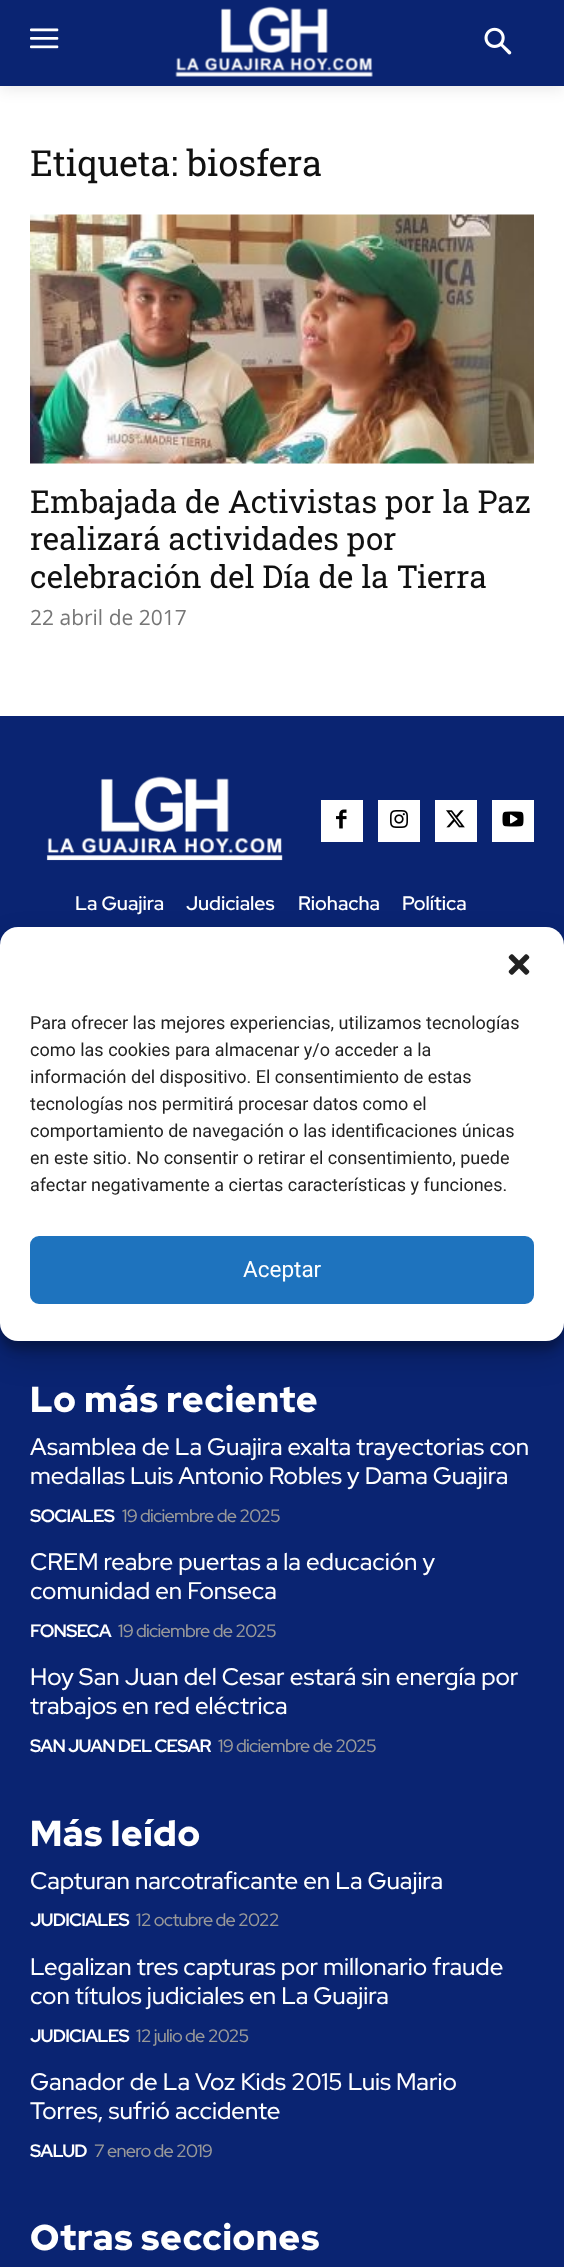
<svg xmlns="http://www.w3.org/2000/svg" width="564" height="2267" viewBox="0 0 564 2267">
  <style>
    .t1 { font: 36px Roboto Slab; fill: #111; }
    .t2 { font: 31.5px Roboto Slab; fill: #111; }
    .t3 { font: 21px Open Sans; fill: #767676; }
    .t4 { font: 600 19.5px Red Hat Display; fill: #fff; }
    .t5 { font: 900 36px Red Hat Display; letter-spacing: 0.75px; fill: #fff; }
    .t6 { font: 500 24px Red Hat Display; fill: #fff; }
    .t7 { font: bold 18px Red Hat Display; letter-spacing: -0.75px; fill: #fff; }
    .t8 { font: 500 18px Red Hat Display; letter-spacing: -0.75px; fill: #999; }
    .t9 { font: 18px Roboto; fill: #222; }
    .t10 { font: 22.5px Roboto; fill: #fff; }
  </style>
  <rect width="100%" height="100%" fill="#fff"/>
  <rect x="0" y="3" width="564" height="86" fill="#00000017" filter="blur(7.5px)"/>
  <rect x="0" y="0" width="564" height="86" fill="#0a2472"/>
  <image x="30" y="28" width="29" height="21" href="images/1.png"/>
  <image x="175" y="6" width="198" height="71" href="images/2.png"/>
  <image x="484" y="27" width="28" height="28" href="images/3.png"/>
  <text x="30" y="176" class="t1">Etiqueta: biosfera</text>
  <image x="30" y="214" width="504" height="250" href="images/4.png"/>
  <text x="30" y="513" class="t2">Embajada de Activistas por la Paz</text>
  <text x="30" y="550" class="t2">realizará actividades por</text>
  <text x="30" y="588" class="t2">celebración del Día de la Tierra</text>
  <text x="30" y="625" class="t3">22 abril de 2017</text>
  <rect x="0" y="716" width="564" height="1551" fill="#0a2472"/>
  <image x="46" y="776" width="237" height="85" href="images/5.png"/>
  <rect x="321" y="800" width="42" height="42" fill="#fff"/>
  <image x="336" y="809" width="11" height="20" href="images/6.png"/>
  <rect x="378" y="800" width="42" height="42" fill="#fff"/>
  <image x="390" y="810" width="18" height="18" href="images/7.png"/>
  <rect x="435" y="800" width="42" height="42" fill="#fff"/>
  <image x="446" y="810" width="19" height="18" href="images/8.png"/>
  <rect x="492" y="800" width="42" height="42" fill="#fff"/>
  <image x="502" y="811" width="22" height="16" href="images/9.png"/>
  <text x="75" y="910" class="t4">La Guajira</text>
  <text x="186" y="910" class="t4">Judiciales</text>
  <text x="298" y="910" class="t4">Riohacha</text>
  <text x="402" y="910" class="t4">Política</text>
  <text x="30" y="1412" class="t5">Lo más reciente</text>
  <text x="30" y="1455" class="t6">Asamblea de La Guajira exalta trayectorias con</text>
  <text x="30" y="1484" class="t6">medallas Luis Antonio Robles y Dama Guajira</text>
  <text x="30" y="1522" class="t7">SOCIALES</text>
  <text x="122" y="1522" class="t8">19 diciembre de 2025</text>
  <text x="30" y="1570" class="t6">CREM reabre puertas a la educación y</text>
  <text x="30" y="1599" class="t6">comunidad en Fonseca</text>
  <text x="30" y="1637" class="t7">FONSECA</text>
  <text x="118" y="1637" class="t8">19 diciembre de 2025</text>
  <text x="30" y="1685" class="t6">Hoy San Juan del Cesar estará sin energía por</text>
  <text x="30" y="1714" class="t6">trabajos en red eléctrica</text>
  <text x="30" y="1752" class="t7">SAN JUAN DEL CESAR</text>
  <text x="218" y="1752" class="t8">19 diciembre de 2025</text>
  <text x="30" y="1846" class="t5">Más leído</text>
  <text x="30" y="1889" class="t6">Capturan narcotraficante en La Guajira</text>
  <text x="30" y="1926" class="t7">JUDICIALES</text>
  <text x="136" y="1926" class="t8">12 octubre de 2022</text>
  <text x="30" y="1975" class="t6">Legalizan tres capturas por millonario fraude</text>
  <text x="30" y="2004" class="t6">con títulos judiciales en La Guajira</text>
  <text x="30" y="2042" class="t7">JUDICIALES</text>
  <text x="136" y="2042" class="t8">12 julio de 2025</text>
  <text x="30" y="2090" class="t6">Ganador de La Voz Kids 2015 Luis Mario</text>
  <text x="30" y="2119" class="t6">Torres, sufrió accidente</text>
  <text x="30" y="2157" class="t7">SALUD</text>
  <text x="94" y="2157" class="t8">7 enero de 2019</text>
  <text x="30" y="2250" class="t5">Otras secciones</text>
  <rect x="0" y="936" width="564" height="414" rx="18" fill="#0000003b" filter="blur(4.5px)"/>
  <rect x="0" y="942" width="564" height="414" rx="18" fill="#00000030" filter="blur(15px)"/>
  <rect x="0" y="927" width="564" height="414" rx="18" fill="#fff"/>
  <image x="508" y="954" width="22" height="21" href="images/10.png"/>
  <text x="30" y="1029" class="t9">Para ofrecer las mejores experiencias, utilizamos tecnologías</text>
  <text x="30" y="1056" class="t9">como las cookies para almacenar y/o acceder a la</text>
  <text x="30" y="1083" class="t9">información del dispositivo. El consentimiento de estas</text>
  <text x="30" y="1110" class="t9">tecnologías nos permitirá procesar datos como el</text>
  <text x="30" y="1137" class="t9">comportamiento de navegación o las identificaciones únicas</text>
  <text x="30" y="1164" class="t9">en este sitio. No consentir o retirar el consentimiento, puede</text>
  <text x="30" y="1191" class="t9">afectar negativamente a ciertas características y funciones.</text>
  <rect x="31" y="1237" width="502" height="66" rx="8" fill="#1e73be" stroke="#1e73be" stroke-width="2"/>
  <text x="243" y="1277" class="t10">Aceptar</text>
</svg>
